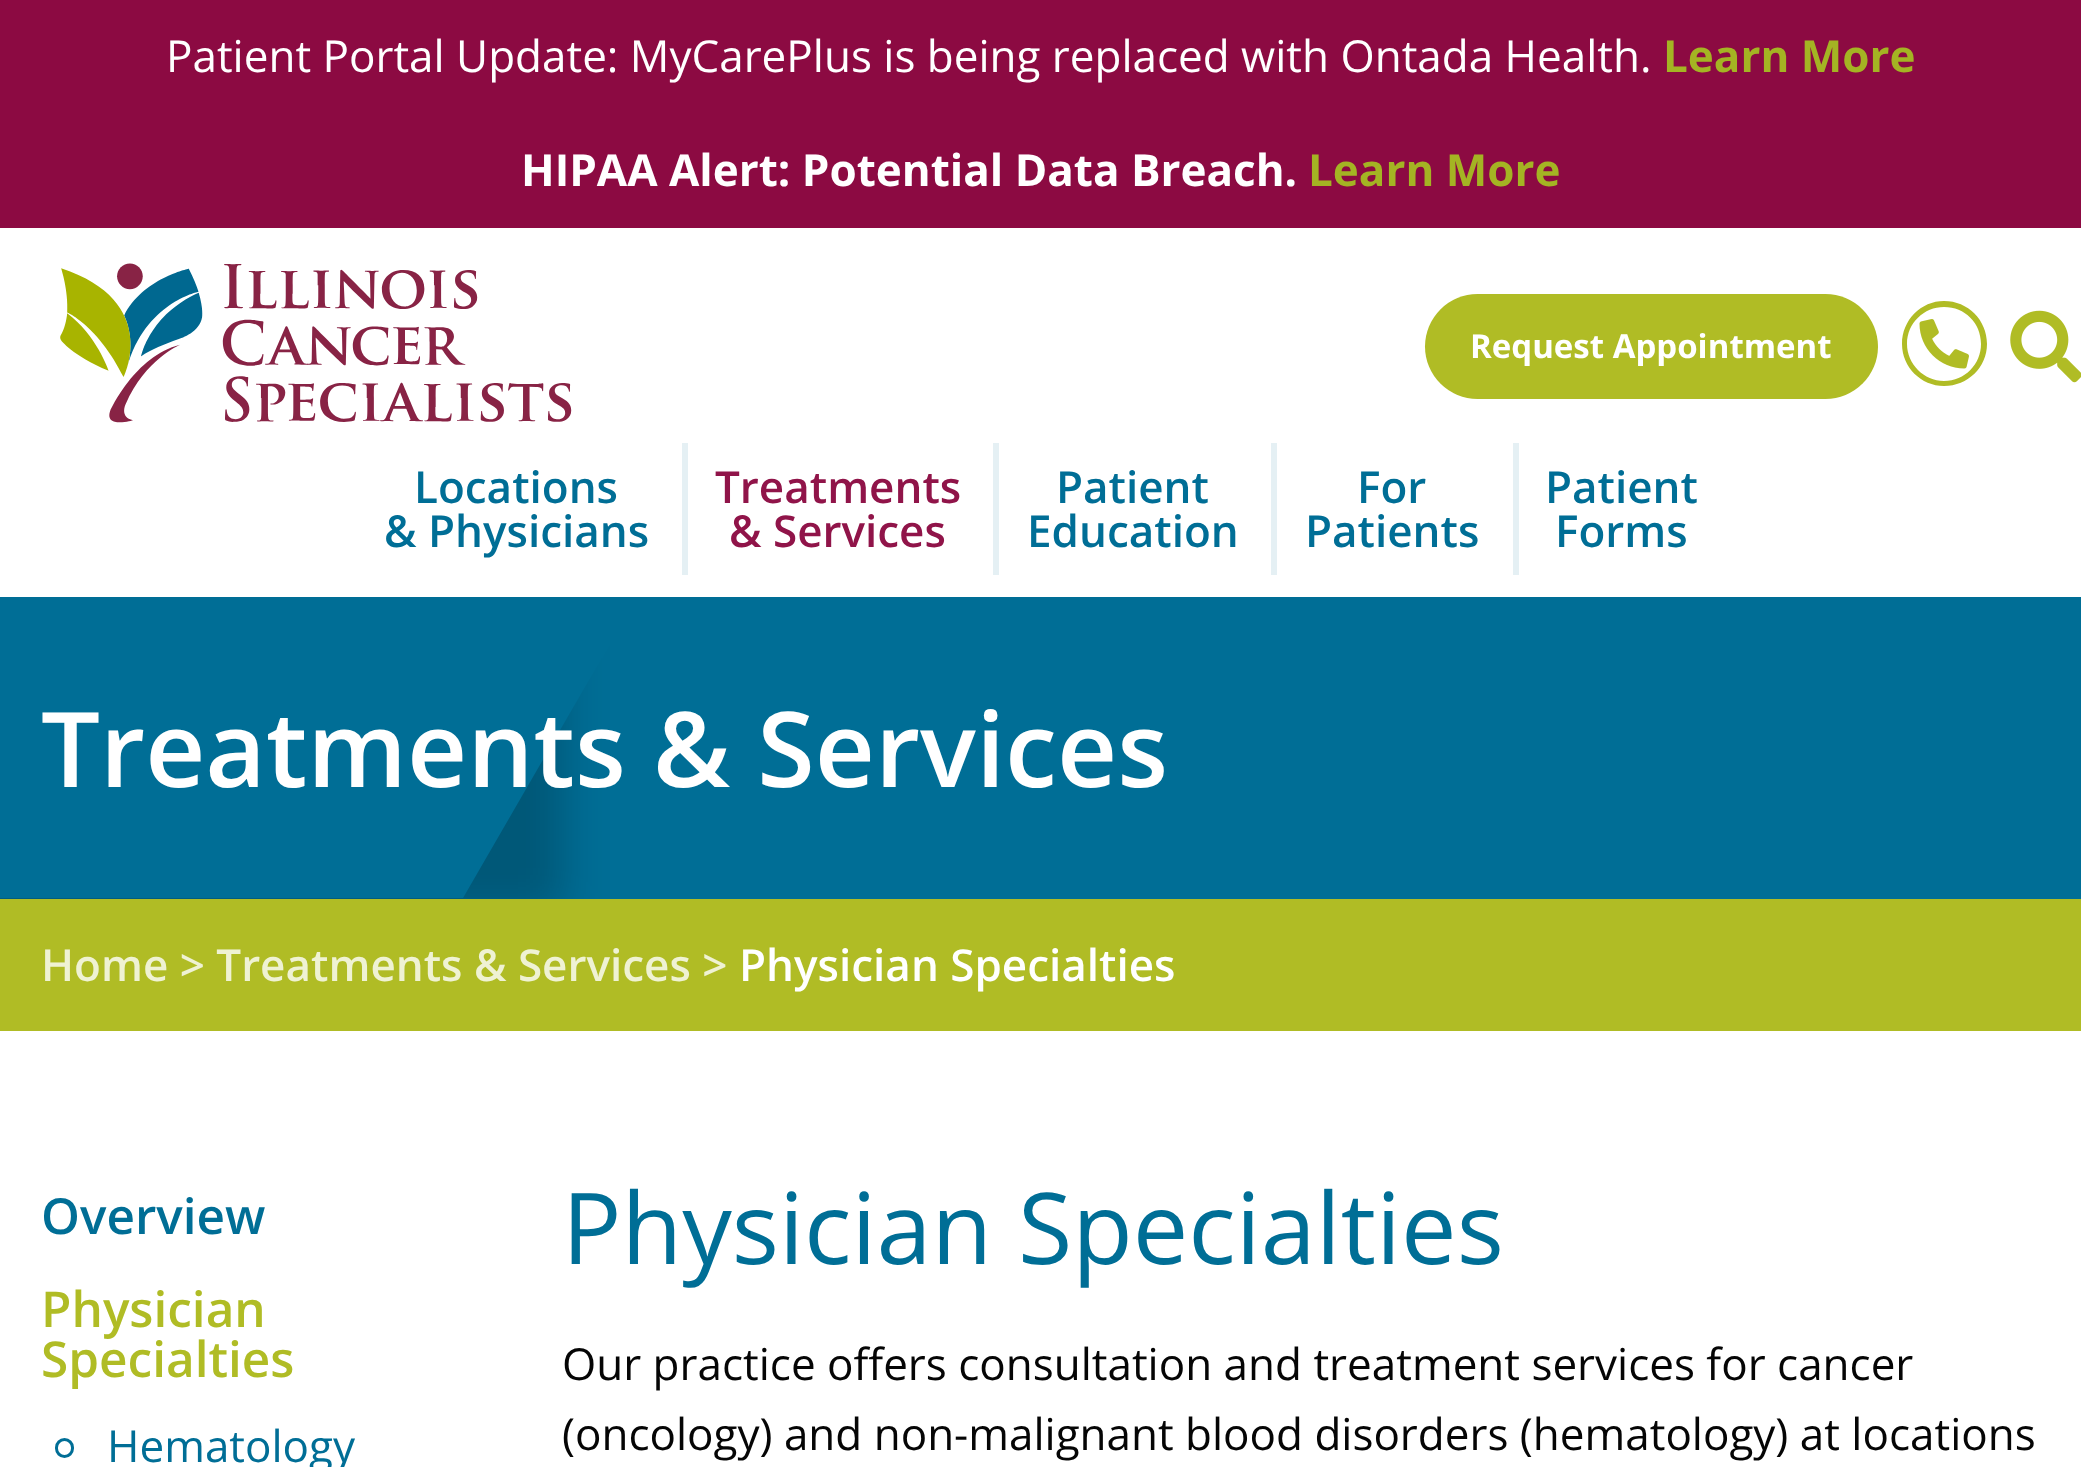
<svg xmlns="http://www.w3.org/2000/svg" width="2081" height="1467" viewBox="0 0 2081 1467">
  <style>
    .t1 { font: 44px Open Sans; fill: #fff; }
    .t2 { font: bold 44px Open Sans; fill: #a4b423; }
    .t3 { font: bold 44px Open Sans; fill: #fff; }
    .t4 { font: bold 33px Open Sans; fill: #fff; }
    .t5 { font: 600 44px Open Sans; fill: #006e96; }
    .t6 { font: 600 44px Open Sans; fill: #901449; }
    .t7 { font: 600 104.5px Open Sans; fill: #fff; }
    .t8 { font: 600 44px Open Sans; fill: #eff2d3; }
    .t9 { font: 600 44px Open Sans; fill: #fff; }
    .t10 { font: 600 49.5px Open Sans; fill: #006e96; }
    .t11 { font: 600 49.5px Open Sans; fill: #b0bc25; }
    .t12 { font: 44px Open Sans; fill: #006e96; }
    .t13 { font: 99px Open Sans; fill: #006e96; }
    .t14 { font: 44px Open Sans; fill: #050505; }
  </style>
  <defs>
    <clipPath id="clip1"><rect x="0" y="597" width="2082" height="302"/></clipPath>
    <clipPath id="clip2"><path d="M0 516H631V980H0ZM-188 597H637L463 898H-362Z" clip-rule="evenodd"/></clipPath>
  </defs>
  <rect width="100%" height="100%" fill="#fff"/>
  <rect x="0" y="0" width="2081" height="228" fill="#8c0a42"/>
  <text x="166" y="72" class="t1">Patient Portal Update: MyCarePlus is being replaced with Ontada Health.</text>
  <text x="1663" y="72" class="t2">Learn More</text>
  <text x="521" y="186" class="t3">HIPAA Alert: Potential Data Breach.</text>
  <text x="1308" y="186" class="t2">Learn More</text>
  <image x="60" y="263" width="512" height="160" href="images/1.png"/>
  <rect x="1425" y="294" width="453" height="105" rx="52.5" fill="#b0bc25"/>
  <text x="1470" y="358" class="t4">Request Appointment</text>
  <image x="1919" y="319" width="50" height="50" href="images/2.png"/>
  <path d="M1944 301C1921 301 1902 320 1902 344C1902 367 1921 386 1944 386C1968 386 1987 367 1987 344C1987 320 1968 301 1944 301ZM1981 344C1981 364 1965 381 1944 381C1924 381 1907 364 1907 344C1907 323 1924 307 1944 307C1965 307 1981 323 1981 344Z" fill="#b0bc25"/>
  <image x="2010" y="310" width="71" height="73" href="images/3.png"/>
  <text x="414" y="503" class="t5">Locations</text>
  <rect x="0" y="597" width="2081" height="302" fill="#006e96"/>
  <rect x="0" y="899" width="2081" height="132" fill="#b0bc25"/>
  <g clip-path="url(#clip1)">
    <g clip-path="url(#clip2)">
      <rect x="-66" y="583" width="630" height="330" fill="#00000033" filter="blur(22px)"/>
    </g>
  </g>
  <text x="384" y="547" class="t5">&amp; Physicians</text>
  <rect x="682" y="443" width="6" height="132" fill="#e5f0f4"/>
  <text x="715" y="503" class="t6">Treatments</text>
  <text x="729" y="547" class="t6">&amp; Services</text>
  <rect x="993" y="443" width="6" height="132" fill="#e5f0f4"/>
  <text x="1056" y="503" class="t5">Patient</text>
  <text x="1027" y="547" class="t5">Education</text>
  <rect x="1271" y="443" width="6" height="132" fill="#e5f0f4"/>
  <text x="1357" y="503" class="t5">For</text>
  <text x="1305" y="547" class="t5">Patients</text>
  <rect x="1513" y="443" width="6" height="132" fill="#e5f0f4"/>
  <text x="1545" y="503" class="t5">Patient</text>
  <text x="1555" y="547" class="t5">Forms</text>
  <text x="41" y="787" class="t7">Treatments &amp; Services</text>
  <text x="41" y="981" class="t8">Home &gt; Treatments &amp; Services &gt;</text>
  <text x="739" y="981" class="t9">Physician Specialties</text>
  <text x="41" y="1234" class="t10">Overview</text>
  <text x="41" y="1327" class="t11">Physician</text>
  <text x="41" y="1377" class="t11">Specialties</text>
  <rect x="56.5" y="1439.5" width="16" height="17" rx="8" fill="none" stroke="#006e96" stroke-width="3"/>
  <text x="107" y="1462" class="t12">Hematology</text>
  <text x="562" y="1264" class="t13">Physician Specialties</text>
  <text x="562" y="1380" class="t14">Our practice offers consultation and treatment services for cancer</text>
  <text x="562" y="1450" class="t14">(oncology) and non-malignant blood disorders (hematology) at locations</text>
</svg>
